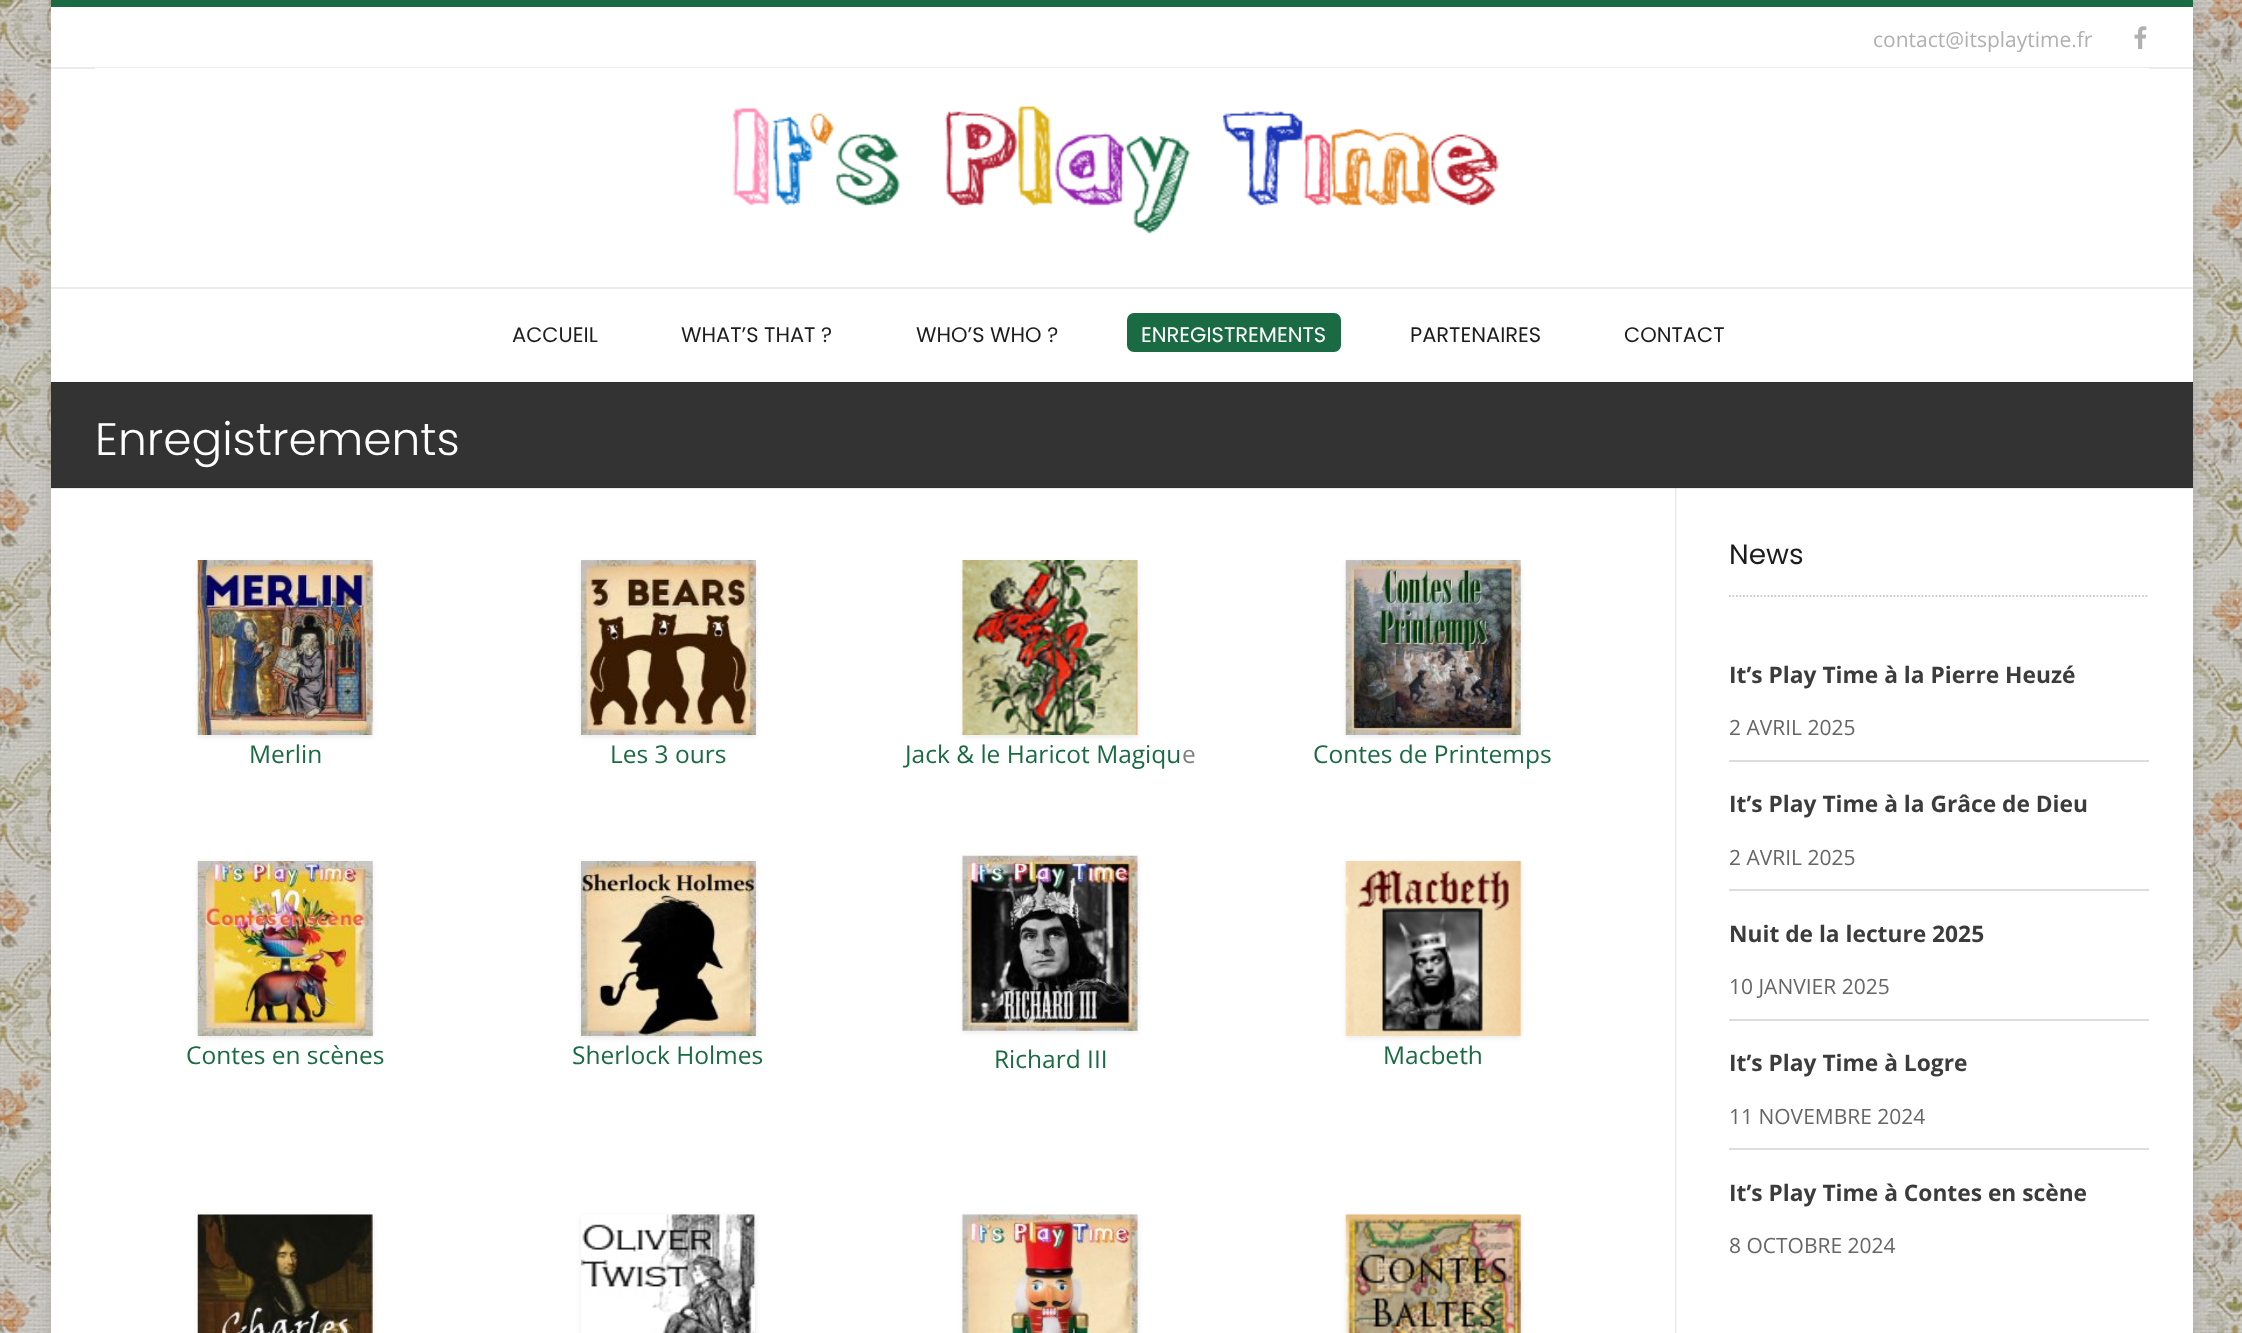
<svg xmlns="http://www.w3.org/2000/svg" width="2242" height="1333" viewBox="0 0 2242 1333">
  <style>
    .t1 { font: 21px Open Sans; fill: #b0b0b0; }
    .t2 { font: 21px Poppins; fill: #1d1d1d; }
    .t3 { font: 21px Poppins; fill: #fff; }
    .t4 { font: 300 45.5px Poppins; fill: #fff; }
    .t5 { font: 24.5px Open Sans; fill: #1a6a43; }
    .t6 { font: 24.5px Open Sans; fill: #808080; }
    .t7 { font: 28px Poppins; fill: #1d1d1d; }
    .t8 { font: bold 22.75px Open Sans; fill: #3c3c3c; }
    .t9 { font: 21px Open Sans; fill: #666; }
  </style>
  <defs>
    <clipPath id="clip1"><path d="M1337 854H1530V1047H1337ZM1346 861H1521V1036H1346Z" clip-rule="evenodd"/></clipPath>
  </defs>
  <rect width="100%" height="100%" fill="#fff"/>
  <image x="0" y="0" width="2242" height="1333" href="images/1.png"/>
  <rect x="51" y="0" width="2142" height="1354" fill="#0000001f" filter="blur(7px)"/>
  <rect x="51" y="7" width="2142" height="1326" fill="#fff"/>
  <path d="M51 382V383H2193V2V382Z" fill="#2d2d2d"/>
  <rect x="51" y="0" width="2142" height="7" fill="#1a6a43"/>
  <rect x="51" y="67" width="2142" height="2" fill="#ebebeb"/>
  <text x="1873" y="47" class="t1">contact@itsplaytime.fr</text>
  <image x="2134" y="26" width="13" height="23" href="images/2.png"/>
  <path d="M51 287V289H2193V70V287Z" fill="#ebebeb"/>
  <rect x="95" y="68" width="2054" height="1" fill="#fff"/>
  <image x="732" y="106" width="767" height="128" href="images/3.png"/>
  <text x="512" y="342" class="t2">ACCUEIL</text>
  <text x="681" y="342" class="t2">WHAT’S THAT ?</text>
  <text x="916" y="342" class="t2">WHO’S WHO ?</text>
  <rect x="1127" y="313" width="214" height="39" rx="7" fill="#1a6a43"/>
  <text x="1141" y="342" class="t3">ENREGISTREMENTS</text>
  <text x="1410" y="342" class="t2">PARTENAIRES</text>
  <text x="1624" y="342" class="t2">CONTACT</text>
  <rect x="51" y="383" width="2142" height="105" fill="#333"/>
  <rect x="51" y="487" width="2142" height="2" fill="#00000014"/>
  <text x="95" y="455" class="t4">Enregistrements</text>
  <rect x="1675" y="488" width="2" height="845" fill="#0000000a"/>
  <rect x="198" y="562" width="175" height="175" fill="#00000014" filter="blur(2.5px)"/>
  <image x="197" y="560" width="176" height="175" href="images/4.png"/>
  <text x="249" y="763" class="t5">Merlin</text>
  <rect x="581" y="562" width="175" height="175" fill="#00000014" filter="blur(2.5px)"/>
  <image x="581" y="560" width="175" height="175" href="images/5.png"/>
  <text x="610" y="763" class="t5">Les 3 ours</text>
  <rect x="963" y="562" width="175" height="175" fill="#00000014" filter="blur(2.5px)"/>
  <image x="962" y="560" width="176" height="175" href="images/6.png"/>
  <text x="905" y="763" class="t5">Jack &amp; le Haricot Magiqu</text>
  <text x="1182" y="763" class="t6">e</text>
  <rect x="1346" y="562" width="175" height="175" fill="#00000014" filter="blur(2.5px)"/>
  <image x="1345" y="560" width="176" height="175" href="images/7.png"/>
  <text x="1313" y="763" class="t5">Contes de Printemps</text>
  <rect x="198" y="863" width="175" height="175" fill="#00000014" filter="blur(2.5px)"/>
  <image x="197" y="861" width="176" height="175" href="images/8.png"/>
  <text x="186" y="1064" class="t5">Contes en scènes</text>
  <rect x="581" y="863" width="175" height="175" fill="#00000014" filter="blur(2.5px)"/>
  <image x="581" y="861" width="175" height="175" href="images/9.png"/>
  <text x="572" y="1064" class="t5">Sherlock Holmes</text>
  <rect x="963" y="858" width="175" height="175" fill="#00000014" filter="blur(2.5px)"/>
  <image x="962" y="855" width="176" height="176" href="images/10.png"/>
  <text x="994" y="1068" class="t5">Richard III</text>
  <g clip-path="url(#clip1)">
    <rect x="1346" y="863" width="175" height="175" fill="#00000014" filter="blur(2.5px)"/>
  </g>
  <image x="1345" y="861" width="176" height="175" href="images/11.png"/>
  <text x="1383" y="1064" class="t5">Macbeth</text>
  <rect x="198" y="1216" width="175" height="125" fill="#00000014" filter="blur(2.5px)"/>
  <image x="197" y="1214" width="176" height="119" href="images/12.png"/>
  <rect x="581" y="1216" width="175" height="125" fill="#00000014" filter="blur(2.5px)"/>
  <image x="581" y="1214" width="174" height="119" href="images/13.png"/>
  <rect x="963" y="1216" width="175" height="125" fill="#00000014" filter="blur(2.5px)"/>
  <image x="962" y="1214" width="176" height="119" href="images/14.png"/>
  <rect x="1346" y="1216" width="175" height="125" fill="#00000014" filter="blur(2.5px)"/>
  <image x="1345" y="1214" width="176" height="119" href="images/15.png"/>
  <path d="M1675 488V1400H1676V488H2147Z" fill="#0000000a"/>
  <path d="M1729 596H2149" fill="none" stroke="#ccc" stroke-width="1.8" stroke-dasharray="1.75 1.75"/>
  <text x="1729" y="564" class="t7">News</text>
  <rect x="1729" y="760" width="420" height="2" fill="#ddd"/>
  <text x="1729" y="683" class="t8">It’s Play Time à la Pierre Heuzé</text>
  <text x="1729" y="735" class="t9">2 AVRIL 2025</text>
  <rect x="1729" y="889" width="420" height="2" fill="#ddd"/>
  <text x="1729" y="812" class="t8">It’s Play Time à la Grâce de Dieu</text>
  <text x="1729" y="865" class="t9">2 AVRIL 2025</text>
  <rect x="1729" y="1019" width="420" height="2" fill="#ddd"/>
  <text x="1729" y="942" class="t8">Nuit de la lecture 2025</text>
  <text x="1729" y="994" class="t9">10 JANVIER 2025</text>
  <rect x="1729" y="1148" width="420" height="2" fill="#ddd"/>
  <text x="1729" y="1071" class="t8">It’s Play Time à Logre</text>
  <text x="1729" y="1124" class="t9">11 NOVEMBRE 2024</text>
  <text x="1729" y="1201" class="t8">It’s Play Time à Contes en scène</text>
  <text x="1729" y="1253" class="t9">8 OCTOBRE 2024</text>
</svg>
